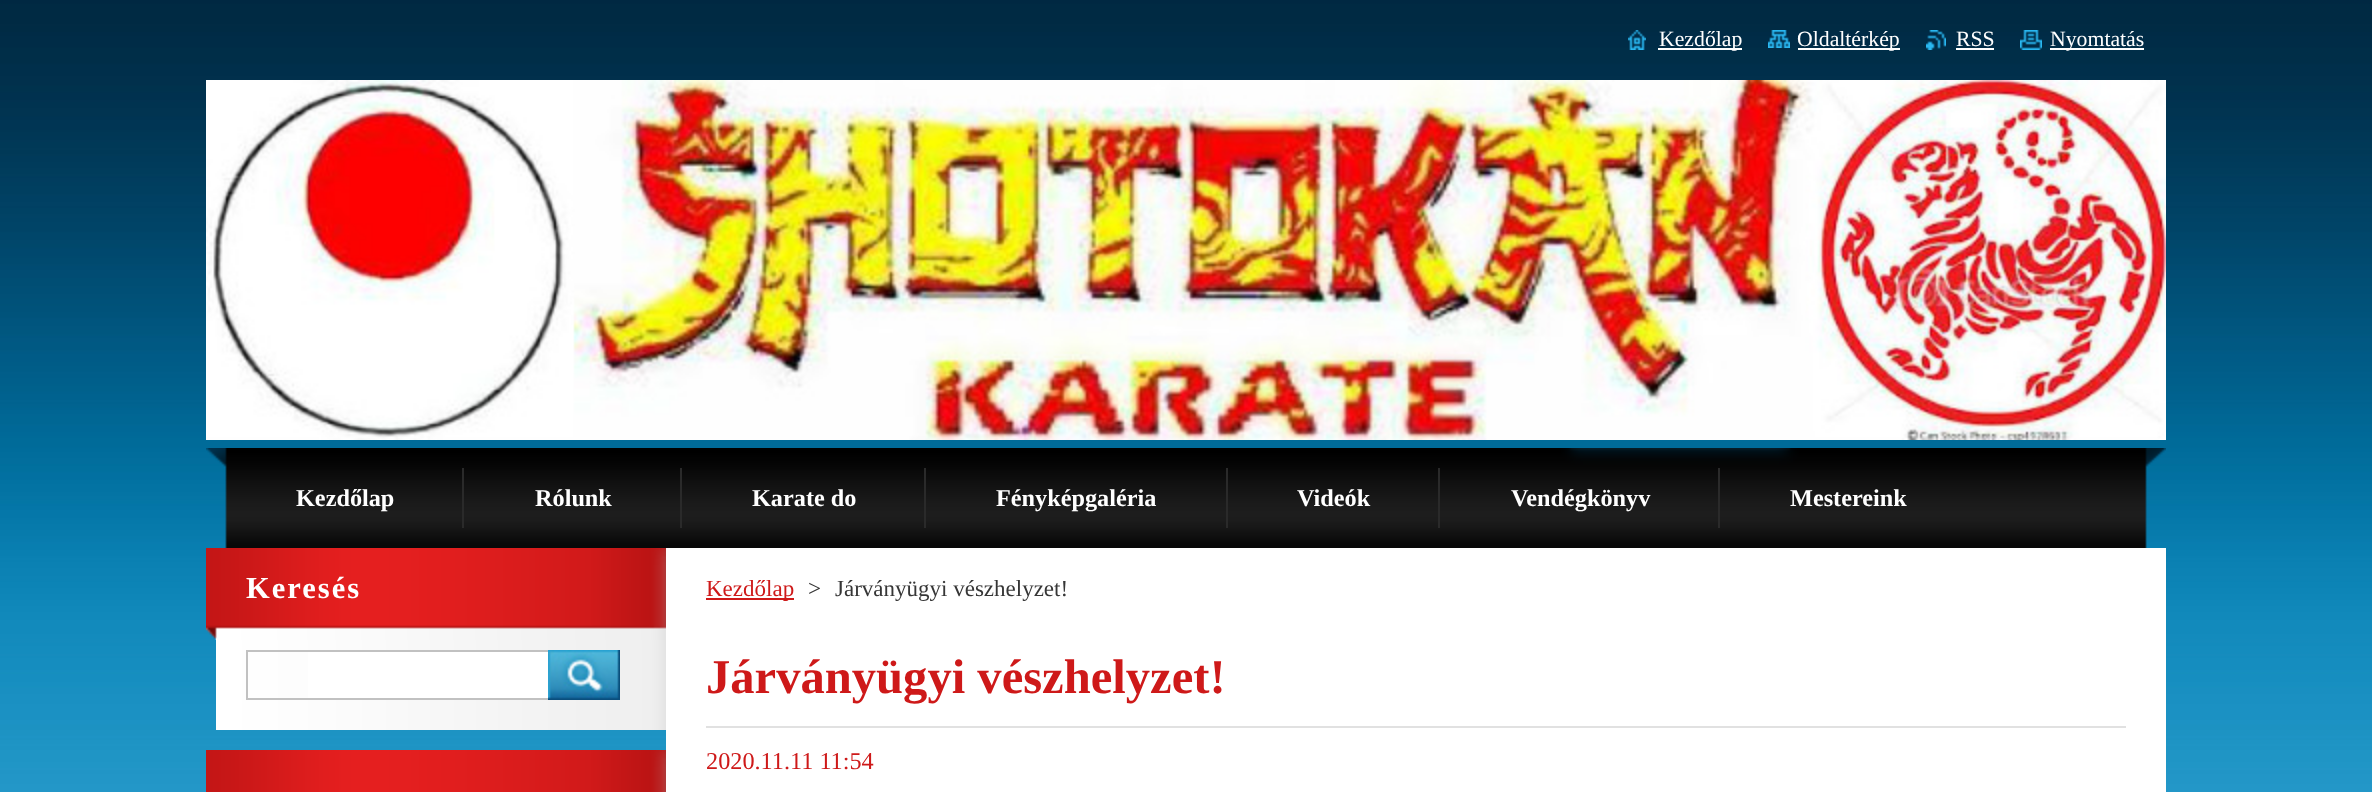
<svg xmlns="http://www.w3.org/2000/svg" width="2372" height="792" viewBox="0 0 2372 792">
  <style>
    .t1 { font: 21.75px Liberation Serif; fill: #fff; }
    .t2 { font: bold 24.25px Liberation Serif; fill: #fff; }
    .t3 { font: bold 30.5px Liberation Serif; letter-spacing: 2px; fill: #fff; }
    .t4 { font: 23px Liberation Serif; fill: #ce1919; }
    .t5 { font: 23px Liberation Serif; fill: #363636; }
    .t6 { font: bold 48.6px Liberation Serif; fill: #ce1919; }
    .t7 { font: 24.25px Liberation Serif; fill: #ce1919; }
  </style>
  <rect width="100%" height="100%" fill="#fff"/>
  <image x="0" y="0" width="2372" height="792" href="images/1.png"/>
  <image x="1628" y="30" width="18" height="20" href="images/2.png"/>
  <rect x="1658" y="48" width="84" height="2" fill="#fff"/>
  <text x="1659" y="46" class="t1">Kezdőlap</text>
  <image x="1768" y="30" width="22" height="18" href="images/3.png"/>
  <rect x="1798" y="48" width="102" height="2" fill="#fff"/>
  <text x="1797" y="46" class="t1">Oldaltérkép</text>
  <image x="1926" y="30" width="20" height="20" href="images/4.png"/>
  <text x="1956" y="46" class="t1">RSS</text>
  <rect x="1956" y="48" width="38" height="2" fill="#fff"/>
  <image x="2020" y="30" width="22" height="20" href="images/5.png"/>
  <rect x="2050" y="48" width="94" height="2" fill="#fff"/>
  <text x="2050" y="46" class="t1">Nyomtatás</text>
  <image x="206" y="80" width="1960" height="360" href="images/6.png"/>
  <image x="206" y="448" width="1960" height="100" href="images/7.png"/>
  <rect x="462" y="468" width="2" height="60" fill="#2a2a2a"/>
  <text x="296" y="506" class="t2">Kezdőlap</text>
  <rect x="680" y="468" width="2" height="60" fill="#2a2a2a"/>
  <text x="535" y="506" class="t2">Rólunk</text>
  <rect x="924" y="468" width="2" height="60" fill="#2a2a2a"/>
  <text x="752" y="506" class="t2">Karate do</text>
  <rect x="1226" y="468" width="2" height="60" fill="#2a2a2a"/>
  <text x="996" y="506" class="t2">Fényképgaléria</text>
  <rect x="1438" y="468" width="2" height="60" fill="#2a2a2a"/>
  <text x="1297" y="506" class="t2">Videók</text>
  <rect x="1718" y="468" width="2" height="60" fill="#2a2a2a"/>
  <text x="1511" y="506" class="t2">Vendégkönyv</text>
  <text x="1790" y="506" class="t2">Mestereink</text>
  <image x="216" y="637" width="450" height="93" href="images/8.png"/>
  <image x="206" y="548" width="460" height="92" href="images/9.png"/>
  <text x="246" y="598" class="t3">Keresés</text>
  <rect x="308" y="652" width="240" height="46" fill="#fff"/>
  <rect x="247" y="651" width="302" height="48" fill="none" stroke="#c1c1c1" stroke-width="2"/>
  <image x="548" y="650" width="72" height="50" href="images/10.png"/>
  <image x="206" y="750" width="460" height="42" href="images/11.png"/>
  <rect x="666" y="548" width="1500" height="244" fill="#fff"/>
  <rect x="706" y="598" width="88" height="2" fill="#ce1919"/>
  <text x="706" y="596" class="t4">Kezdőlap</text>
  <text x="808" y="596" class="t5">&gt;</text>
  <text x="835" y="596" class="t5">Járványügyi vészhelyzet!</text>
  <rect x="706" y="726" width="1420" height="2" fill="#e1e1e1"/>
  <text x="706" y="693" class="t6">Járványügyi vészhelyzet!</text>
  <text x="706" y="769" class="t7">2020.11.11 11:54</text>
</svg>
